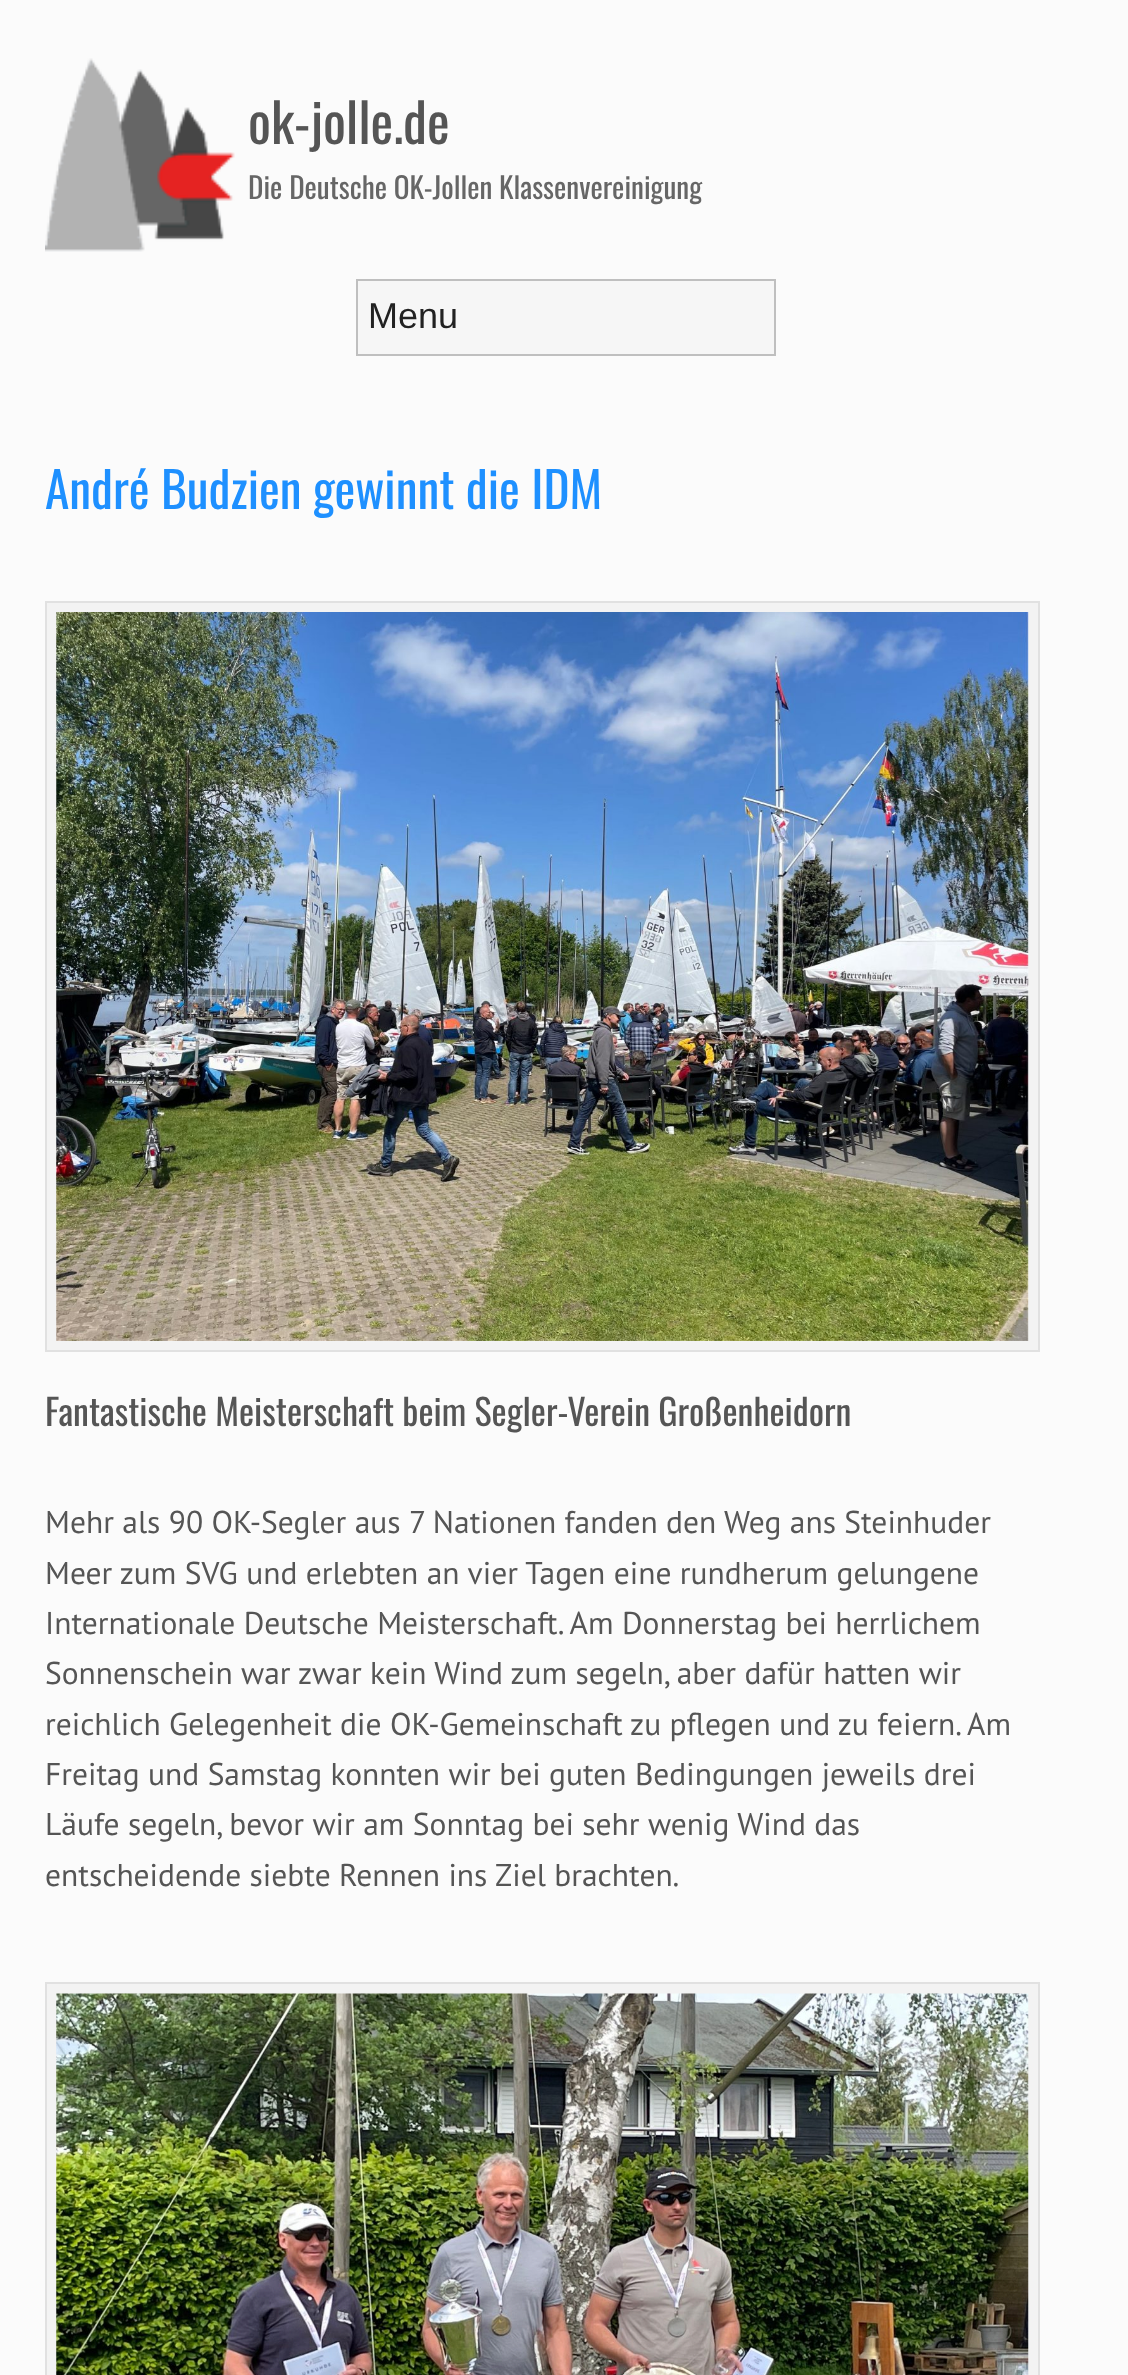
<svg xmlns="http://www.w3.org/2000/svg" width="1128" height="2375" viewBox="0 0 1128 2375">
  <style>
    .t1 { font: 54px Oswald; fill: #555; }
    .t2 { font: 29.25px Oswald; fill: #666; }
    .t3 { font: 36px Liberation Sans; fill: #222; }
    .t4 { font: 49.5px Oswald; fill: #1e90ff; }
    .t5 { font: 36px Oswald; fill: #555; }
    .t6 { font: 31.5px PT Sans; fill: #555; }
  </style>
  <rect width="100%" height="100%" fill="#fbfbfb"/>
  <image x="45" y="58" width="190" height="194" href="images/1.png"/>
  <text x="248" y="144" class="t1">ok-jolle.de</text>
  <text x="248" y="199" class="t2">Die Deutsche OK-Jollen Klassenvereinigung</text>
  <rect x="357" y="280" width="418" height="75" fill="#f6f6f6" stroke="#bfbfbf" stroke-width="2"/>
  <text x="368" y="328" class="t3">Menu</text>
  <text x="45" y="509" class="t4">André Budzien gewinnt die IDM</text>
  <rect x="46" y="602" width="993" height="749" fill="#f3f3f3" stroke="#e1e1e1" stroke-width="2"/>
  <image x="56" y="612" width="973" height="729" href="images/2.png"/>
  <text x="45" y="1426" class="t5">Fantastische Meisterschaft beim Segler-Verein Großenheidorn</text>
  <text x="45" y="1533" class="t6">Mehr als 90 OK-Segler aus 7 Nationen fanden den Weg ans Steinhuder</text>
  <text x="45" y="1584" class="t6">Meer zum SVG und erlebten an vier Tagen eine rundherum gelungene</text>
  <text x="45" y="1634" class="t6">Internationale Deutsche Meisterschaft. Am Donnerstag bei herrlichem</text>
  <text x="45" y="1684" class="t6">Sonnenschein war zwar kein Wind zum segeln, aber dafür hatten wir</text>
  <text x="45" y="1735" class="t6">reichlich Gelegenheit die OK-Gemeinschaft zu pflegen und zu feiern. Am</text>
  <text x="45" y="1785" class="t6">Freitag und Samstag konnten wir bei guten Bedingungen jeweils drei</text>
  <text x="45" y="1835" class="t6">Läufe segeln, bevor wir am Sonntag bei sehr wenig Wind das</text>
  <text x="45" y="1886" class="t6">entscheidende siebte Rennen ins Ziel brachten.</text>
  <rect x="46" y="1983" width="993" height="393" fill="#f3f3f3" stroke="#e1e1e1" stroke-width="2"/>
  <image x="56" y="1993" width="973" height="382" href="images/3.png"/>
</svg>
